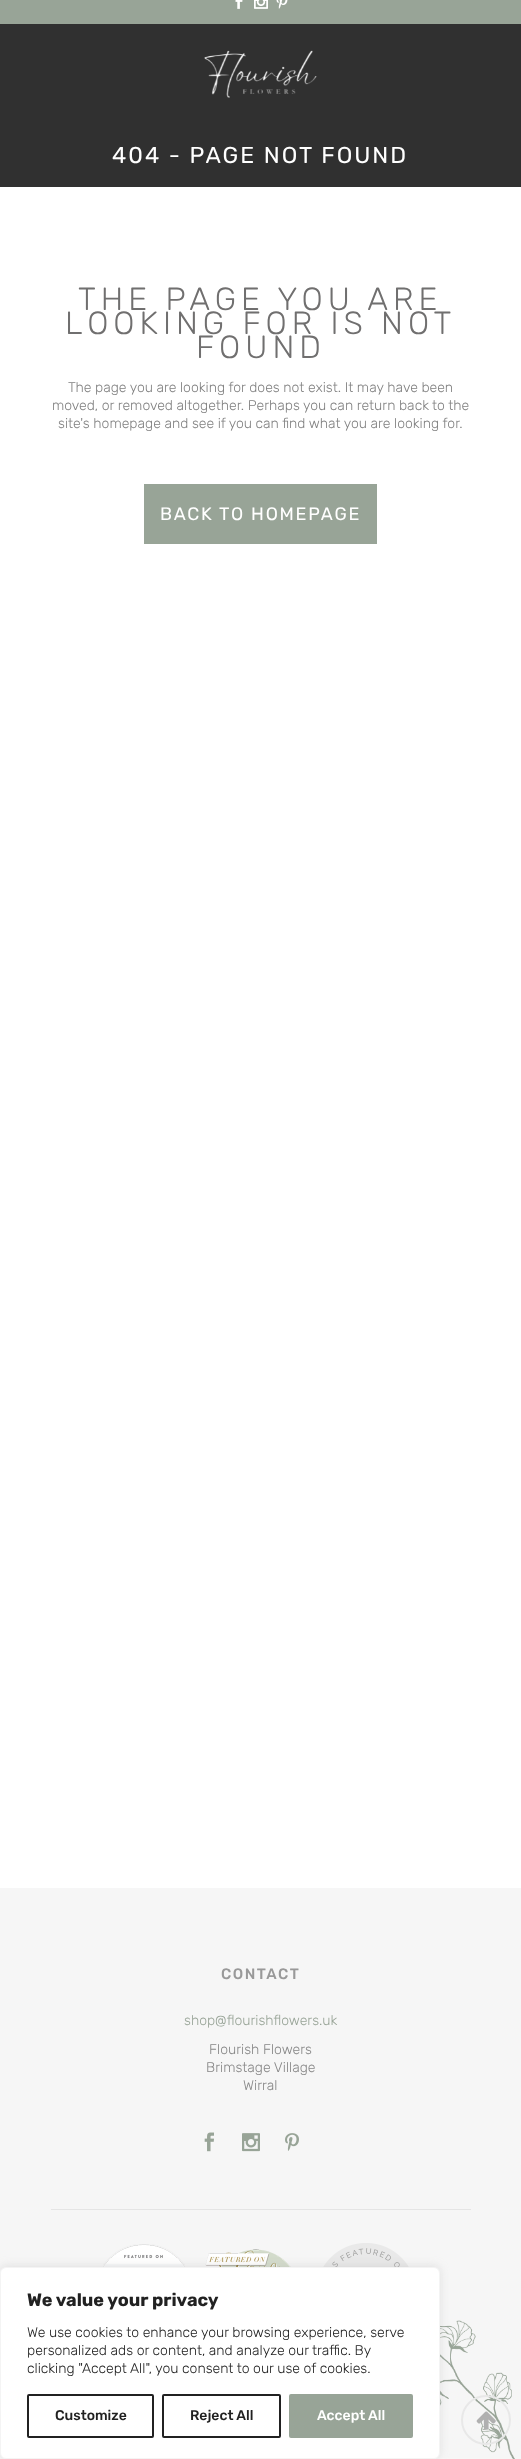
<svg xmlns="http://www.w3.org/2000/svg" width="521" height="2459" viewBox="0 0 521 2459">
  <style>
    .t1 { font: 23px Rubik; letter-spacing: 2px; fill: #fff; }
    .t2 { font: 300 32px Rubik; letter-spacing: 5px; fill: #706f6f; }
    .t3 { font: 300 14px Rubik; fill: #818181; }
    .t4 { font: 18px Rubik; letter-spacing: 1.75px; fill: #fff; }
    .t5 { font: 500 15px Rubik; letter-spacing: 1.5px; fill: #999; }
    .t6 { font: 300 14px Rubik; fill: #98a497; }
    .t7 { font: 300 14px Rubik; fill: #878787; }
    .t8 { font: bold 18px Rubik; fill: #212121; }
    .t9 { font: 300 14px Rubik; fill: #212121; }
    .t10 { font: 500 14px Rubik; fill: #212121; }
    .t11 { font: 500 14px Rubik; fill: #fff; }
  </style>
  <rect width="100%" height="100%" fill="#fff"/>
  <rect x="0" y="0" width="521" height="24" fill="#98a497"/>
  <image x="235" y="0" width="8" height="9" href="images/1.png"/>
  <image x="254" y="0" width="14" height="9" href="images/2.png"/>
  <image x="276" y="0" width="12" height="9" href="images/3.png"/>
  <rect x="0" y="24" width="521" height="163" fill="#303030"/>
  <image x="204" y="50" width="113" height="48" href="images/4.png"/>
  <text x="112" y="163" class="t1">404 - PAGE NOT FOUND</text>
  <text x="78" y="310" class="t2">THE PAGE YOU ARE</text>
  <text x="65" y="334" class="t2">LOOKING FOR IS NOT</text>
  <text x="196" y="358" class="t2">FOUND</text>
  <text x="68" y="392" class="t3">The page you are looking for does not exist. It may have been</text>
  <text x="52" y="410" class="t3">moved, or removed altogether. Perhaps you can return back to the</text>
  <text x="58" y="428" class="t3">site's homepage and see if you can find what you are looking for.</text>
  <rect x="144" y="484" width="233" height="60" fill="#98a497"/>
  <text x="160" y="520" class="t4">BACK TO HOMEPAGE</text>
  <rect x="0" y="1888" width="521" height="571" fill="#f6f6f6"/>
  <image x="440" y="2320" width="75" height="139" href="images/5.png"/>
  <rect x="51" y="2209" width="420" height="1" fill="#e5e5e5"/>
  <image x="103" y="2244" width="82" height="23" href="images/6.png"/>
  <image x="205" y="2249" width="86" height="18" href="images/7.png"/>
  <image x="323" y="2243" width="86" height="24" href="images/8.png"/>
  <text x="221" y="1979" class="t5">CONTACT</text>
  <text x="184" y="2025" class="t6">shop@flourishflowers.uk</text>
  <text x="209" y="2054" class="t7">Flourish Flowers</text>
  <text x="206" y="2072" class="t7">Brimstage Village</text>
  <text x="243" y="2090" class="t7">Wirral</text>
  <image x="204" y="2132" width="10" height="20" href="images/9.png"/>
  <image x="242" y="2133" width="18" height="19" href="images/10.png"/>
  <image x="285" y="2133" width="14" height="18" href="images/11.png"/>
  <circle cx="486" cy="2420" r="24" fill="none" stroke="#e8e8e8" stroke-width="2"/>
  <image x="476" y="2411" width="20" height="19" href="images/12.png"/>
  <rect x="0" y="2266" width="440" height="192" rx="6" fill="#acabab4d" filter="blur(5px)"/>
  <rect x="0.5" y="2267.5" width="439" height="191" rx="5.5" fill="#fff" stroke="#f4f4f4"/>
  <text x="27" y="2306" class="t8">We value your privacy</text>
  <text x="27" y="2337" class="t9">We use cookies to enhance your browsing experience, serve</text>
  <text x="27" y="2355" class="t9">personalized ads or content, and analyze our traffic. By</text>
  <text x="27" y="2373" class="t9">clicking "Accept All", you consent to our use of cookies.</text>
  <rect x="28" y="2395" width="125" height="42" rx="1" fill="none" stroke="#212121" stroke-width="2"/>
  <text x="55" y="2420" class="t10">Customize</text>
  <rect x="163" y="2395" width="117" height="42" rx="1" fill="none" stroke="#212121" stroke-width="2"/>
  <text x="190" y="2420" class="t10">Reject All</text>
  <rect x="290" y="2395" width="122" height="42" rx="1" fill="#98a497" stroke="#98a497" stroke-width="2"/>
  <text x="317" y="2420" class="t11">Accept All</text>
</svg>
